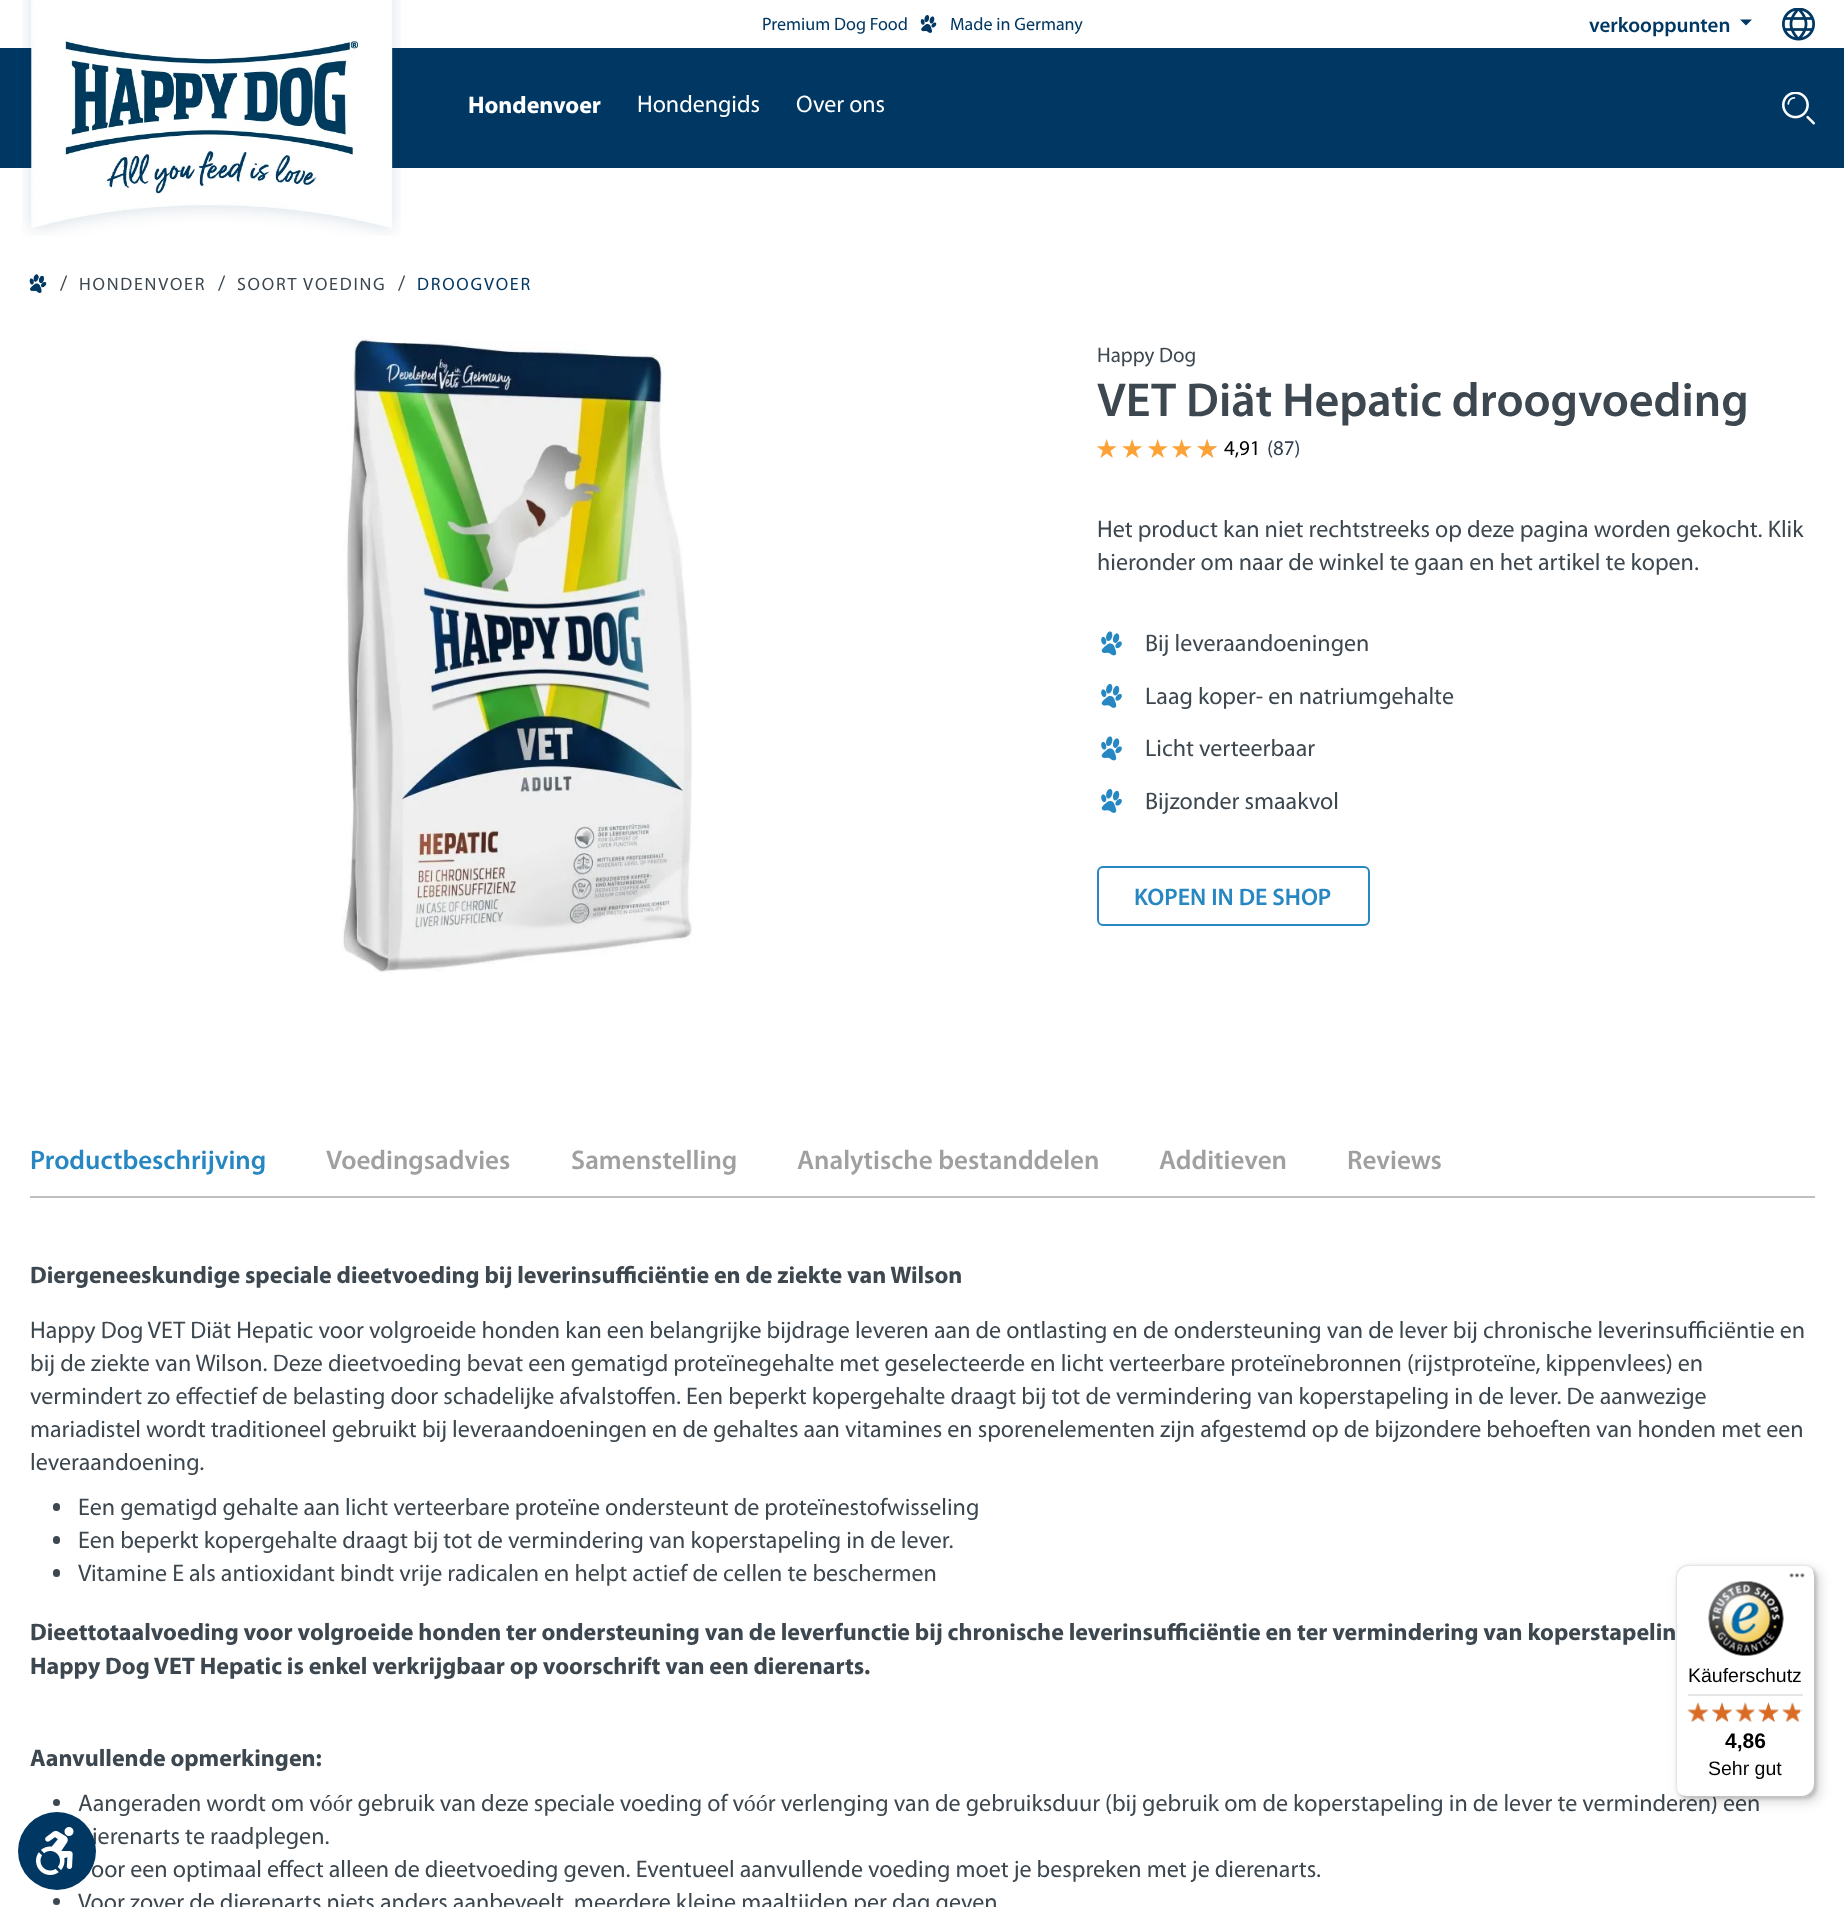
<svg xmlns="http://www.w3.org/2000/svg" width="1844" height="1907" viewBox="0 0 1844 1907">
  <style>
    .t1 { font: 18px Myriad; fill: #003863; }
    .t2 { font: 600 21px Myriad; fill: #003863; }
    .t3 { font: bold 24px Myriad; fill: #fff; }
    .t4 { font: 24px Myriad; fill: #fff; }
    .t5 { font: 21px Myriad; fill: #3d474f; }
    .t6 { font: 18px Myriad; letter-spacing: 1.75px; fill: #3d474f; }
    .t7 { font: 18px Myriad; letter-spacing: 1.75px; fill: #003863; }
    .t8 { font: 600 48px Myriad; fill: #3d474f; }
    .t9 { font: 21px Myriad; fill: #000; }
    .t10 { font: 21px Myriad; fill: #344054; }
    .t11 { font: 24px Myriad; fill: #3d474f; }
    .t12 { font: 600 24px Myriad; fill: #2787c2; }
    .t13 { font: 600 27px Myriad; fill: #2787c2; }
    .t14 { font: 600 27px Myriad; fill: #a0a0a0; }
    .t15 { font: bold 24px Myriad; fill: #3d474f; }
    .t16 { font: 19.5px Liberation Sans; fill: #000; }
    .t17 { font: bold 21px Liberation Sans; fill: #000; }
  </style>
  <rect width="100%" height="100%" fill="#fff"/>
  <rect x="0" y="48" width="1844" height="120" fill="#003863"/>
  <text x="762" y="30" class="t1">Premium Dog Food</text>
  <image x="920" y="15" width="17" height="18" href="images/1.png"/>
  <text x="950" y="30" class="t1">Made in Germany</text>
  <text x="1589" y="32" class="t2">verkooppunten</text>
  <path d="M1740 19.5H1752L1746 25.5Z" fill="#003863"/>
  <image x="1782" y="8" width="33" height="33" href="images/2.png"/>
  <image x="22" y="0" width="379" height="236" href="images/3.png"/>
  <text x="468" y="113" class="t3">Hondenvoer</text>
  <text x="637" y="112" class="t4">Hondengids</text>
  <text x="796" y="112" class="t4">Over ons</text>
  <image x="1782" y="92" width="33" height="33" href="images/4.png"/>
  <image x="29" y="274" width="18" height="20" href="images/5.png"/>
  <text x="60" y="290" class="t5">/</text>
  <text x="79" y="290" class="t6">HONDENVOER</text>
  <text x="218" y="290" class="t5">/</text>
  <text x="237" y="290" class="t6">SOORT VOEDING</text>
  <text x="398" y="290" class="t5">/</text>
  <text x="417" y="290" class="t7">DROOGVOER</text>
  <image x="342" y="336" width="351" height="637" href="images/6.png"/>
  <text x="1097" y="362" class="t5">Happy Dog</text>
  <text x="1097" y="416" class="t8">VET Diät Hepatic droogvoeding</text>
  <image x="1097" y="439" width="20" height="19" href="images/7.png"/>
  <image x="1122" y="439" width="21" height="19" href="images/8.png"/>
  <image x="1148" y="439" width="20" height="19" href="images/7.png"/>
  <image x="1172" y="439" width="20" height="19" href="images/7.png"/>
  <image x="1197" y="439" width="20" height="19" href="images/9.png"/>
  <image x="1197" y="439" width="20" height="19" href="images/10.png"/>
  <text x="1224" y="455" class="t9">4,91</text>
  <text x="1267" y="455" class="t10">(87)</text>
  <text x="1097" y="537" class="t11">Het product kan niet rechtstreeks op deze pagina worden gekocht. Klik</text>
  <text x="1097" y="570" class="t11">hieronder om naar de winkel te gaan en het artikel te kopen.</text>
  <image x="1101" y="631" width="21" height="25" href="images/11.png"/>
  <text x="1145" y="651" class="t11">Bij leveraandoeningen</text>
  <image x="1101" y="684" width="21" height="24" href="images/12.png"/>
  <text x="1145" y="704" class="t11">Laag koper- en natriumgehalte</text>
  <image x="1101" y="736" width="21" height="25" href="images/11.png"/>
  <text x="1145" y="756" class="t11">Licht verteerbaar</text>
  <image x="1101" y="789" width="21" height="24" href="images/12.png"/>
  <text x="1145" y="809" class="t11">Bijzonder smaakvol</text>
  <rect x="1098" y="867" width="271" height="58" rx="5" fill="none" stroke="#2787c2" stroke-width="2"/>
  <text x="1134" y="905" class="t12">KOPEN IN DE SHOP</text>
  <rect x="30" y="1196" width="1785" height="2" fill="#c0c0c0"/>
  <text x="30" y="1169" class="t13">Productbeschrijving</text>
  <text x="326" y="1169" class="t14">Voedingsadvies</text>
  <text x="571" y="1169" class="t14">Samenstelling</text>
  <text x="797" y="1169" class="t14">Analytische bestanddelen</text>
  <text x="1159" y="1169" class="t14">Additieven</text>
  <text x="1347" y="1169" class="t14">Reviews</text>
  <text x="30" y="1283" class="t15">Diergeneeskundige speciale dieetvoeding bij leverinsufficiëntie en de ziekte van Wilson</text>
  <text x="30" y="1338" class="t11">Happy Dog VET Diät Hepatic voor volgroeide honden kan een belangrijke bijdrage leveren aan de ontlasting en de ondersteuning van de lever bij chronische leverinsufficiëntie en</text>
  <text x="30" y="1371" class="t11">bij de ziekte van Wilson. Deze dieetvoeding bevat een gematigd proteïnegehalte met geselecteerde en licht verteerbare proteïnebronnen (rijstproteïne, kippenvlees) en</text>
  <text x="30" y="1404" class="t11">vermindert zo effectief de belasting door schadelijke afvalstoffen. Een beperkt kopergehalte draagt bij tot de vermindering van koperstapeling in de lever. De aanwezige</text>
  <text x="30" y="1437" class="t11">mariadistel wordt traditioneel gebruikt bij leveraandoeningen en de gehaltes aan vitamines en sporenelementen zijn afgestemd op de bijzondere behoeften van honden met een</text>
  <text x="30" y="1470" class="t11">leveraandoening.</text>
  <rect x="53" y="1503" width="7" height="8" rx="3.5" fill="#3d474f"/>
  <text x="78" y="1515" class="t11">Een gematigd gehalte aan licht verteerbare proteïne ondersteunt de proteïnestofwisseling</text>
  <rect x="53" y="1536" width="7" height="8" rx="3.5" fill="#3d474f"/>
  <text x="78" y="1548" class="t11">Een beperkt kopergehalte draagt bij tot de vermindering van koperstapeling in de lever.</text>
  <rect x="53" y="1569" width="7" height="8" rx="3.5" fill="#3d474f"/>
  <text x="78" y="1581" class="t11">Vitamine E als antioxidant bindt vrije radicalen en helpt actief de cellen te beschermen</text>
  <text x="30" y="1640" class="t15">Dieettotaalvoeding voor volgroeide honden ter ondersteuning van de leverfunctie bij chronische leverinsufficiëntie en ter vermindering van koperstapelin</text>
  <text x="30" y="1674" class="t15">Happy Dog VET Hepatic is enkel verkrijgbaar op voorschrift van een dierenarts.</text>
  <text x="30" y="1766" class="t15">Aanvullende opmerkingen:</text>
  <circle cx="56.5" cy="1802.5" r="3.5" fill="#3d474f"/>
  <text x="78" y="1811" class="t11">Aangeraden wordt om vóór gebruik van deze speciale voeding of vóór verlenging van de gebruiksduur (bij gebruik om de koperstapeling in de lever te verminderen) een</text>
  <text x="92" y="1844" class="t11">ierenarts te raadplegen.</text>
  <text x="91" y="1877" class="t11">oor een optimaal effect alleen de dieetvoeding geven. Eventueel aanvullende voeding moet je bespreken met je dierenarts.</text>
  <circle cx="56.5" cy="1901.5" r="3.5" fill="#3d474f"/>
  <text x="78" y="1910" class="t11">Voor zover de dierenarts niets anders aanbeveelt, meerdere kleine maaltijden per dag geven</text>
  <rect x="1680" y="1569" width="140" height="233" rx="12" fill="#00000026" filter="blur(6px)"/>
  <rect x="1677" y="1566" width="140" height="233" rx="12" fill="#00000026" filter="blur(1.5px)"/>
  <rect x="1676" y="1565" width="139" height="232" rx="12" fill="#fff"/>
  <path d="M1689 1566H1804C1807 1566 1809 1567 1811 1568C1809 1566 1806 1565 1803 1565H1688C1681 1565 1676 1570 1676 1577V1785C1676 1788 1677 1791 1679 1793C1678 1791 1677 1789 1677 1786V1578C1677 1571 1682 1566 1689 1566Z" fill="#e5e5e5"/>
  <path d="M1682 1795C1683 1796 1686 1797 1688 1797H1803C1810 1797 1815 1792 1815 1785V1577C1815 1575 1814 1572 1813 1571L1814 1575V1784C1814 1790 1808 1796 1802 1796H1686Z" fill="#00000033"/>
  <path d="M1680 1794C1682 1796 1685 1797 1688 1797H1803C1810 1797 1815 1792 1815 1785V1577C1815 1574 1814 1571 1812 1569C1813 1571 1814 1573 1814 1576V1784C1814 1791 1809 1796 1802 1796H1687C1684 1796 1682 1795 1680 1794Z" fill="#32323233"/>
  <path d="M1680 1794C1682 1796 1685 1797 1688 1797H1803C1810 1797 1815 1792 1815 1785V1577C1815 1574 1814 1571 1812 1569C1813 1571 1814 1573 1814 1576V1784C1814 1791 1809 1796 1802 1796H1687C1684 1796 1682 1795 1680 1794Z" fill="#ffffff4d"/>
  <image x="1789" y="1573" width="16" height="5" href="images/13.png"/>
  <image x="1708" y="1581" width="76" height="75" href="images/14.png"/>
  <text x="1688" y="1682" class="t16">Käuferschutz</text>
  <rect x="1688" y="1694" width="115" height="2" fill="#e5e5e5"/>
  <image x="1688" y="1703" width="20" height="19" href="images/20.png"/>
  <image x="1687" y="1702" width="22" height="20" href="images/15.png"/>
  <image x="1712" y="1702" width="20" height="20" href="images/21.png"/>
  <image x="1712" y="1702" width="20" height="20" href="images/16.png"/>
  <image x="1735" y="1702" width="20" height="20" href="images/22.png"/>
  <image x="1735" y="1702" width="20" height="20" href="images/17.png"/>
  <image x="1758" y="1702" width="21" height="20" href="images/23.png"/>
  <image x="1758" y="1702" width="21" height="20" href="images/18.png"/>
  <image x="1782" y="1703" width="21" height="19" href="images/24.png"/>
  <image x="1782" y="1702" width="18" height="20" href="images/19.png"/>
  <text x="1725" y="1748" class="t17">4,86</text>
  <text x="1708" y="1775" class="t16">Sehr gut</text>
  <circle cx="57" cy="1851" r="39" fill="#003863"/>
  <image x="36" y="1827" width="38" height="48" href="images/25.png"/>
</svg>
